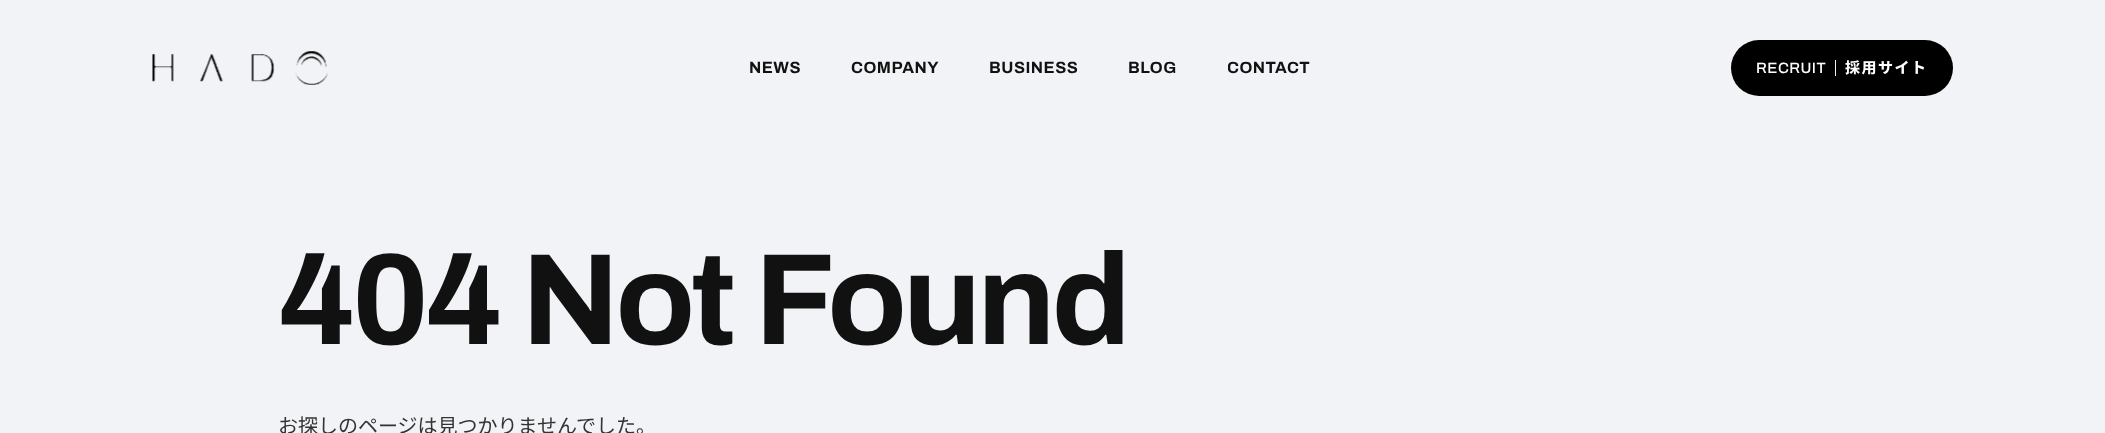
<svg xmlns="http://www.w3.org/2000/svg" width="2105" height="433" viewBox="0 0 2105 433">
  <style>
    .t1 { font: bold 16.25px Archivo; letter-spacing: 0.5px; fill: #111; }
    .t2 { font: 500 15px Archivo; letter-spacing: 0.5px; fill: #fff; }
    .t3 { font: 800 15px Noto Sans JP; letter-spacing: 1.5px; fill: #fff; }
    .t4 { font: bold 130px Archivo; letter-spacing: -3.9px; fill: #111; }
    .t5 { font: 20px Noto Sans JP; fill: #333; }
  </style>
  <defs>
    <clipPath id="clip1"><rect x="1228" y="60" width="82" height="16"/></clipPath>
  </defs>
  <rect width="100%" height="100%" fill="#f1f3f6"/>
  <image x="152" y="51" width="176" height="34" href="images/1.png"/>
  <text x="749" y="73" class="t1">NEWS</text>
  <text x="851" y="73" class="t1">COMPANY</text>
  <text x="989" y="73" class="t1">BUSINESS</text>
  <text x="1128" y="73" class="t1">BLOG</text>
  <g clip-path="url(#clip1)">
    <text x="1227" y="73" class="t1">CONTACT</text>
  </g>
  <rect x="1731" y="40" width="222" height="56" rx="28" fill="#000"/>
  <text x="1756" y="73" class="t2">RECRUIT</text>
  <rect x="1835" y="60" width="1" height="16" fill="#eee"/>
  <text x="1845" y="73" class="t3">採用サイト</text>
  <text x="278" y="344" word-spacing="1" class="t4">404 Not Found</text>
  <text x="278" y="433" class="t5">お探しのページは見つかりませんでした。</text>
</svg>
